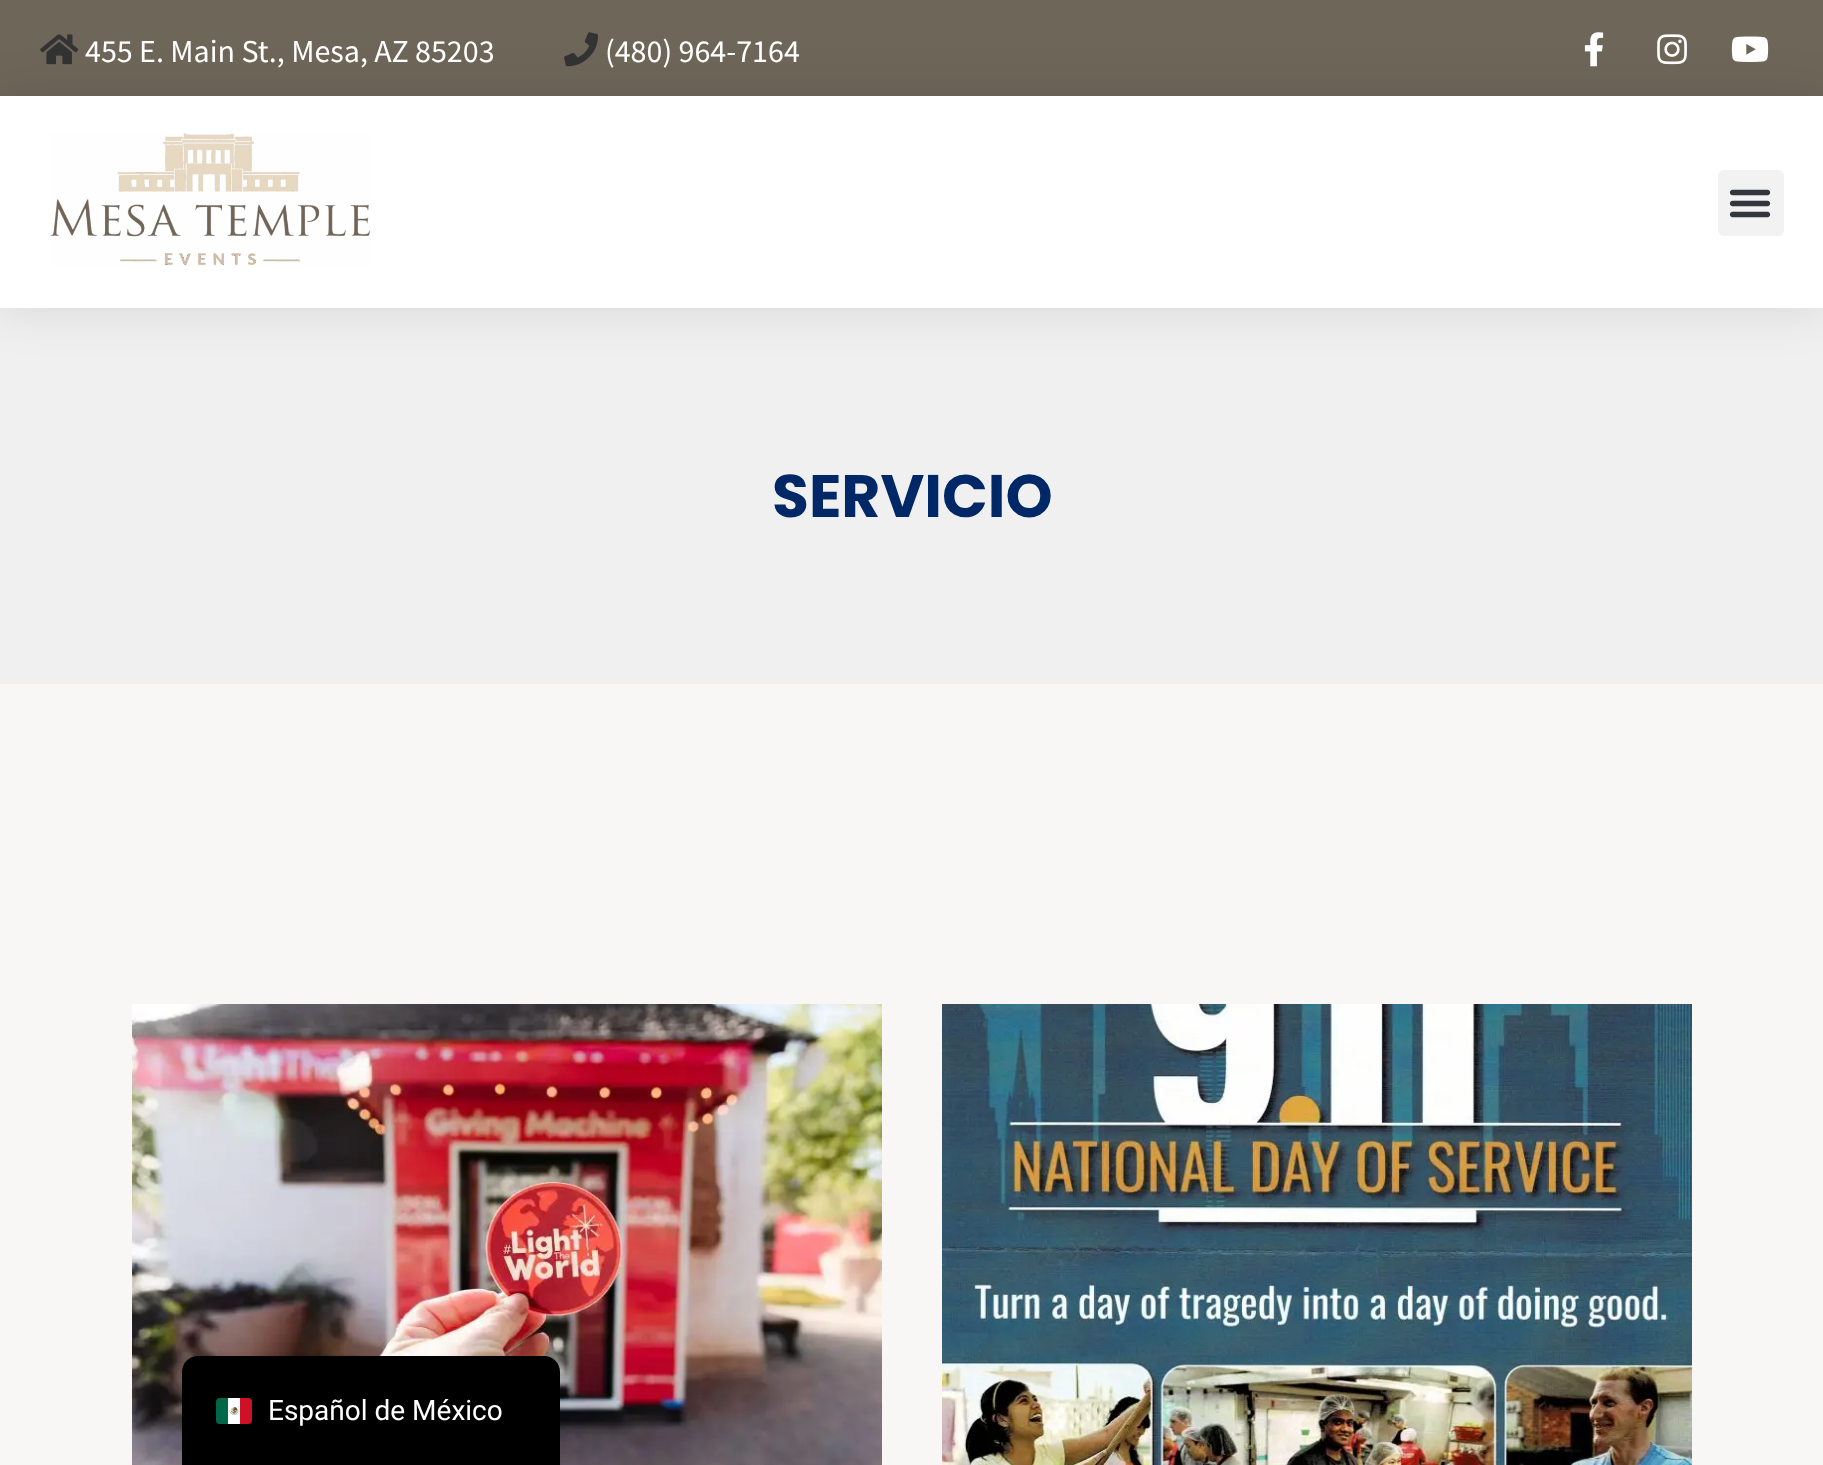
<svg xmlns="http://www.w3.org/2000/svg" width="1823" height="1465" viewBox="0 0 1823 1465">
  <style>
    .t1 { font: 32px Source Sans Pro; fill: #fff; }
    .t2 { font: bold 60px Poppins; fill: #002866; }
    .t3 { font: 28px Roboto; fill: #fff; }
  </style>
  <defs>
    <clipPath id="clip1"><path d="M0 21H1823V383H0ZM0 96H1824V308H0Z" clip-rule="evenodd"/></clipPath>
  </defs>
  <rect width="100%" height="100%" fill="#fff"/>
  <rect x="0" y="0" width="1823" height="96" fill="#6e6659"/>
  <image x="40" y="34" width="39" height="31" href="images/3.png"/>
  <image x="564" y="32" width="34" height="35" href="images/4.png"/>
  <image x="1584" y="32" width="20" height="35" href="images/5.png"/>
  <image x="1657" y="34" width="30" height="31" href="images/6.png"/>
  <image x="1731" y="36" width="38" height="26" href="images/7.png"/>
  <rect x="0" y="308" width="1823" height="376" fill="#f0f0f0"/>
  <g clip-path="url(#clip1)">
    <rect x="-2" y="94" width="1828" height="216" fill="#0000001a" filter="blur(24px)"/>
  </g>
  <image x="50" y="133" width="320" height="133" href="images/1.png"/>
  <rect x="1718" y="170" width="66" height="66" rx="6" fill="#f2f2f2"/>
  <image x="1729" y="189" width="42" height="29" href="images/2.png"/>
  <text x="85" y="62" class="t1">455 E. Main St., Mesa, AZ 85203</text>
  <text x="605" y="62" class="t1">(480) 964-7164</text>
  <text x="772" y="517" class="t2">SERVICIO</text>
  <rect x="0" y="684" width="1823" height="781" fill="#f8f7f5"/>
  <image x="132" y="1004" width="750" height="461" href="images/8.png"/>
  <image x="942" y="1004" width="750" height="461" href="images/9.png"/>
  <rect x="182" y="1376" width="378" height="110" rx="16" fill="#0000000d" filter="blur(20px)"/>
  <path d="M198 1356H544C553 1356 560 1363 560 1372V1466H182V1372C182 1363 189 1356 198 1356Z" fill="#000"/>
  <image x="216" y="1398" width="36" height="26" href="images/10.png"/>
  <text x="268" y="1420" class="t3">Español de México</text>
</svg>
